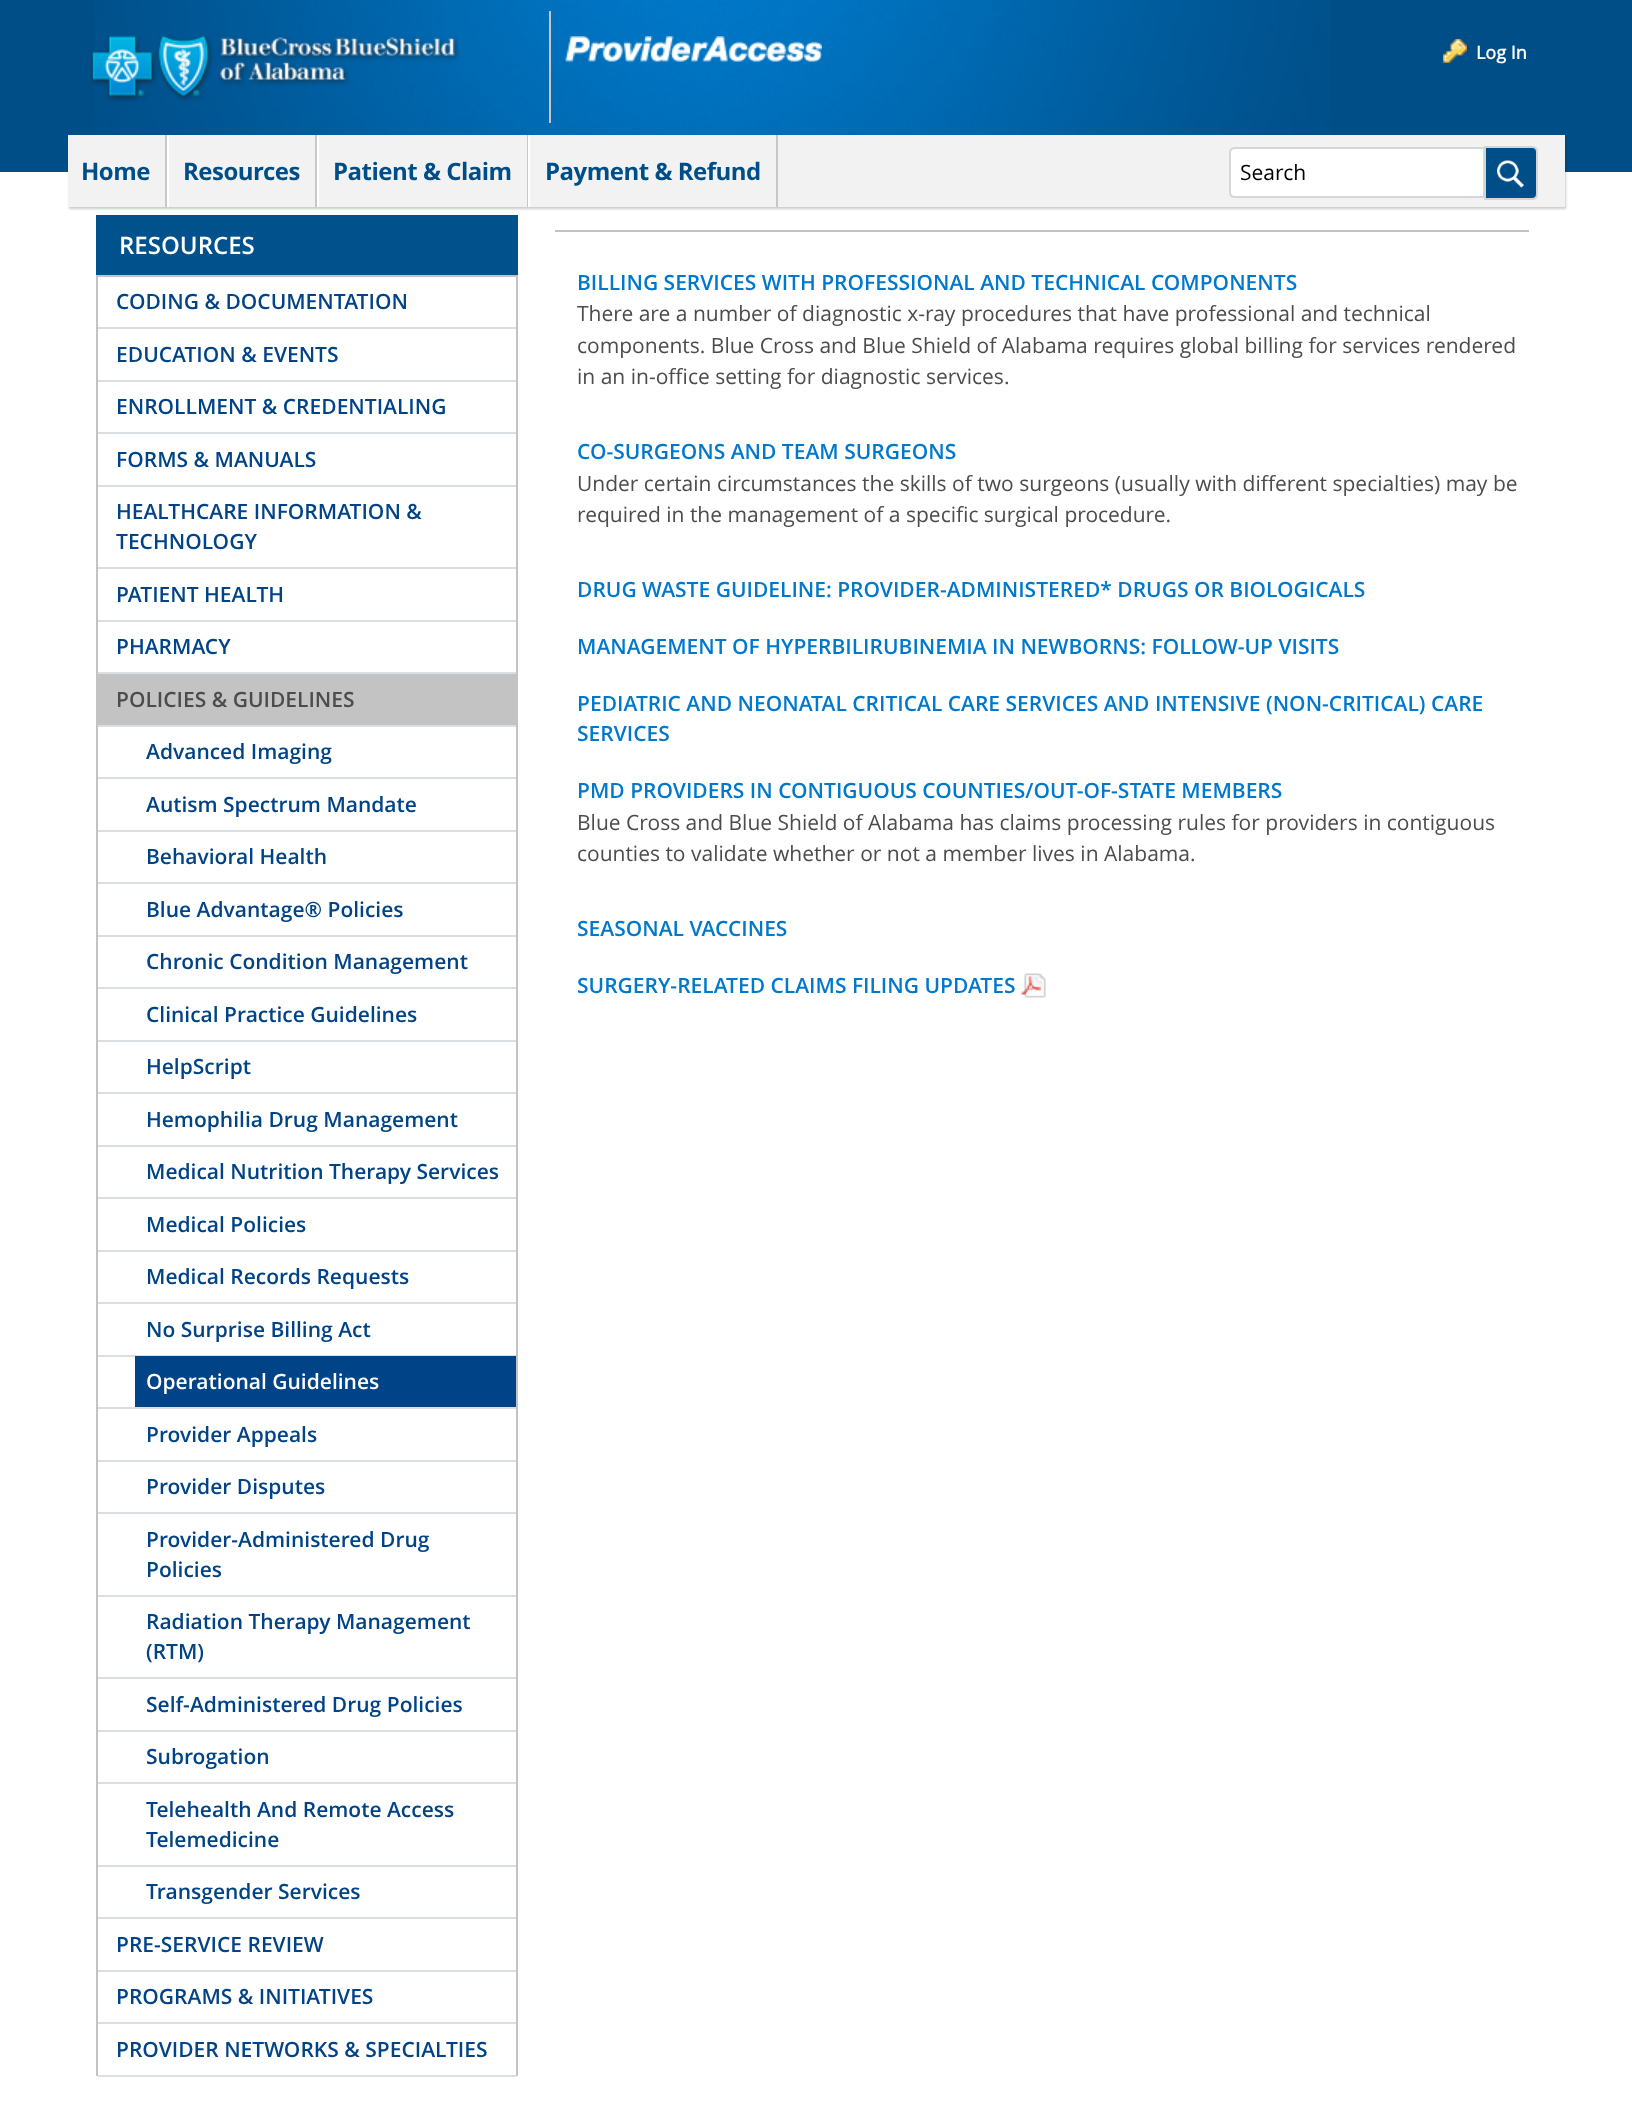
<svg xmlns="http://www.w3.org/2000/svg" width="1632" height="2114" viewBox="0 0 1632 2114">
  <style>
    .t1 { font: bold 18px Open Sans; fill: #fff; }
    .t2 { font: bold 24px 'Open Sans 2'; letter-spacing: -0.5px; fill: #004e87; }
    .t3 { font: 21px Open Sans; fill: #000; }
    .t4 { font: 600 24px Open Sans; fill: #fff; }
    .t5 { font: 600 21px Open Sans; fill: #004387; }
    .t6 { font: 600 21px Open Sans; fill: #4c4c4c; }
    .t7 { font: 600 21px Open Sans; fill: #fff; }
    .t8 { font: 600 21px Open Sans; fill: #0078cc; }
    .t9 { font: 21px Open Sans; fill: #4c4c4c; }
  </style>
  <rect width="100%" height="100%" fill="#fff"/>
  <rect x="0" y="0" width="1632" height="172" fill="#004e87"/>
  <image x="94" y="0" width="1237" height="135" href="images/1.png"/>
  <image x="90" y="35" width="369" height="67" href="images/2.png"/>
  <rect x="549" y="11" width="2" height="112" fill="#c6c6c6"/>
  <image x="565" y="36" width="257" height="26" href="images/3.png"/>
  <image x="1443" y="39" width="24" height="24" href="images/4.png"/>
  <text x="1476" y="59" class="t1">Log In</text>
  <rect x="69" y="137" width="1497" height="72" fill="#00000033" filter="blur(1px)"/>
  <rect x="68" y="135" width="1497" height="72" fill="#f2f2f2"/>
  <rect x="165" y="135" width="2" height="72" fill="#c7c7c7"/>
  <text x="81" y="180" class="t2">Home</text>
  <rect x="315" y="135" width="2" height="72" fill="#c7c7c7"/>
  <rect x="167" y="135" width="2" height="72" fill="#fff"/>
  <text x="183" y="180" class="t2">Resources</text>
  <rect x="527" y="135" width="1" height="72" fill="#c7c7c7"/>
  <rect x="317" y="135" width="2" height="72" fill="#fff"/>
  <text x="333" y="180" class="t2">Patient &amp; Claim</text>
  <rect x="776" y="135" width="2" height="72" fill="#c7c7c7"/>
  <rect x="528" y="135" width="2" height="72" fill="#fff"/>
  <text x="545" y="180" class="t2">Payment &amp; Refund</text>
  <path d="M1235 148H1484V197H1235C1232 197 1230 195 1230 192V153C1230 150 1232 148 1235 148Z" fill="#fff" stroke="#d8d5d5" stroke-width="2"/>
  <text x="1240" y="180" class="t3">Search</text>
  <path d="M1485 147H1532C1535 147 1537 149 1537 152V194C1537 197 1535 199 1532 199H1485Z" fill="#004e87" stroke="#d4d4d4" stroke-width="2"/>
  <image x="1497" y="160" width="27" height="28" href="images/5.png"/>
  <rect x="96" y="215" width="422" height="60" fill="#01518c"/>
  <text x="119" y="254" class="t4">RESOURCES</text>
  <rect x="96" y="275" width="422" height="2" fill="#c2c3c2"/>
  <rect x="516" y="275" width="2" height="1801" fill="#c2c3c2"/>
  <rect x="96" y="275" width="2" height="1801" fill="#c2c3c2"/>
  <rect x="98" y="327" width="418" height="2" fill="#dbdfe2"/>
  <text x="116" y="309" class="t5">CODING &amp; DOCUMENTATION</text>
  <rect x="98" y="380" width="418" height="2" fill="#dbdfe2"/>
  <text x="116" y="362" class="t5">EDUCATION &amp; EVENTS</text>
  <rect x="98" y="432" width="418" height="2" fill="#dbdfe2"/>
  <text x="116" y="414" class="t5">ENROLLMENT &amp; CREDENTIALING</text>
  <rect x="98" y="485" width="418" height="2" fill="#dbdfe2"/>
  <text x="116" y="467" class="t5">FORMS &amp; MANUALS</text>
  <rect x="98" y="567" width="418" height="2" fill="#dbdfe2"/>
  <text x="116" y="519" class="t5">HEALTHCARE INFORMATION &amp;</text>
  <text x="116" y="549" class="t5">TECHNOLOGY</text>
  <rect x="98" y="620" width="418" height="2" fill="#dbdfe2"/>
  <text x="116" y="602" class="t5">PATIENT HEALTH</text>
  <rect x="98" y="672" width="418" height="2" fill="#dbdfe2"/>
  <text x="116" y="654" class="t5">PHARMACY</text>
  <rect x="98" y="725" width="418" height="2" fill="#dbdfe2"/>
  <rect x="98" y="674" width="418" height="51" fill="#c2c3c2"/>
  <text x="116" y="707" class="t6">POLICIES &amp; GUIDELINES</text>
  <rect x="98" y="777" width="418" height="2" fill="#dbdfe2"/>
  <text x="146" y="759" class="t5">Advanced Imaging</text>
  <rect x="98" y="830" width="418" height="2" fill="#dbdfe2"/>
  <text x="146" y="812" class="t5">Autism Spectrum Mandate</text>
  <rect x="98" y="882" width="418" height="2" fill="#dbdfe2"/>
  <text x="146" y="864" class="t5">Behavioral Health</text>
  <rect x="98" y="935" width="418" height="2" fill="#dbdfe2"/>
  <text x="146" y="917" class="t5">Blue Advantage® Policies</text>
  <rect x="98" y="987" width="418" height="2" fill="#dbdfe2"/>
  <text x="146" y="969" class="t5">Chronic Condition Management</text>
  <rect x="98" y="1040" width="418" height="2" fill="#dbdfe2"/>
  <text x="146" y="1022" class="t5">Clinical Practice Guidelines</text>
  <rect x="98" y="1092" width="418" height="2" fill="#dbdfe2"/>
  <text x="146" y="1074" class="t5">HelpScript</text>
  <rect x="98" y="1145" width="418" height="2" fill="#dbdfe2"/>
  <text x="146" y="1127" class="t5">Hemophilia Drug Management</text>
  <rect x="98" y="1197" width="418" height="2" fill="#dbdfe2"/>
  <text x="146" y="1179" class="t5">Medical Nutrition Therapy Services</text>
  <rect x="98" y="1250" width="418" height="2" fill="#dbdfe2"/>
  <text x="146" y="1232" class="t5">Medical Policies</text>
  <rect x="98" y="1302" width="418" height="2" fill="#dbdfe2"/>
  <text x="146" y="1284" class="t5">Medical Records Requests</text>
  <rect x="98" y="1355" width="418" height="2" fill="#dbdfe2"/>
  <text x="146" y="1337" class="t5">No Surprise Billing Act</text>
  <rect x="98" y="1407" width="418" height="2" fill="#dbdfe2"/>
  <rect x="135" y="1356" width="381" height="51" fill="#004387"/>
  <text x="146" y="1389" class="t7">Operational Guidelines</text>
  <rect x="98" y="1460" width="418" height="2" fill="#dbdfe2"/>
  <text x="146" y="1442" class="t5">Provider Appeals</text>
  <rect x="98" y="1512" width="418" height="2" fill="#dbdfe2"/>
  <text x="146" y="1494" class="t5">Provider Disputes</text>
  <rect x="98" y="1595" width="418" height="2" fill="#dbdfe2"/>
  <text x="146" y="1547" class="t5">Provider-Administered Drug</text>
  <text x="146" y="1577" class="t5">Policies</text>
  <rect x="98" y="1677" width="418" height="2" fill="#dbdfe2"/>
  <text x="146" y="1629" class="t5">Radiation Therapy Management</text>
  <text x="146" y="1659" class="t5">(RTM)</text>
  <rect x="98" y="1730" width="418" height="2" fill="#dbdfe2"/>
  <text x="146" y="1712" class="t5">Self-Administered Drug Policies</text>
  <rect x="98" y="1782" width="418" height="2" fill="#dbdfe2"/>
  <text x="146" y="1764" class="t5">Subrogation</text>
  <rect x="98" y="1865" width="418" height="2" fill="#dbdfe2"/>
  <text x="146" y="1817" class="t5">Telehealth And Remote Access</text>
  <text x="146" y="1847" class="t5">Telemedicine</text>
  <rect x="98" y="1917" width="418" height="2" fill="#dbdfe2"/>
  <text x="146" y="1899" class="t5">Transgender Services</text>
  <rect x="98" y="1970" width="418" height="2" fill="#dbdfe2"/>
  <text x="116" y="1952" class="t5">PRE-SERVICE REVIEW</text>
  <rect x="98" y="2022" width="418" height="2" fill="#dbdfe2"/>
  <text x="116" y="2004" class="t5">PROGRAMS &amp; INITIATIVES</text>
  <rect x="98" y="2075" width="418" height="2" fill="#dbdfe2"/>
  <text x="116" y="2057" class="t5">PROVIDER NETWORKS &amp; SPECIALTIES</text>
  <rect x="555" y="230" width="974" height="2" fill="#c3c2c3"/>
  <text x="577" y="290" class="t8">BILLING SERVICES WITH PROFESSIONAL AND TECHNICAL COMPONENTS</text>
  <text x="577" y="321" class="t9">There are a number of diagnostic x-ray procedures that have professional and technical</text>
  <text x="577" y="353" class="t9">components. Blue Cross and Blue Shield of Alabama requires global billing for services rendered</text>
  <text x="577" y="384" class="t9">in an in-office setting for diagnostic services.</text>
  <text x="577" y="459" class="t8">CO-SURGEONS AND TEAM SURGEONS</text>
  <text x="577" y="491" class="t9">Under certain circumstances the skills of two surgeons (usually with different specialties) may be</text>
  <text x="577" y="522" class="t9">required in the management of a specific surgical procedure.</text>
  <text x="577" y="597" class="t8">DRUG WASTE GUIDELINE: PROVIDER-ADMINISTERED* DRUGS OR BIOLOGICALS</text>
  <text x="577" y="654" class="t8">MANAGEMENT OF HYPERBILIRUBINEMIA IN NEWBORNS: FOLLOW-UP VISITS</text>
  <text x="577" y="711" class="t8">PEDIATRIC AND NEONATAL CRITICAL CARE SERVICES AND INTENSIVE (NON-CRITICAL) CARE</text>
  <text x="577" y="741" class="t8">SERVICES</text>
  <text x="577" y="798" class="t8">PMD PROVIDERS IN CONTIGUOUS COUNTIES/OUT-OF-STATE MEMBERS</text>
  <text x="577" y="830" class="t9">Blue Cross and Blue Shield of Alabama has claims processing rules for providers in contiguous</text>
  <text x="577" y="861" class="t9">counties to validate whether or not a member lives in Alabama.</text>
  <text x="577" y="936" class="t8">SEASONAL VACCINES</text>
  <text x="577" y="993" class="t8">SURGERY-RELATED CLAIMS FILING UPDATES</text>
  <image x="1021" y="973" width="25" height="25" href="images/6.png"/>
</svg>
